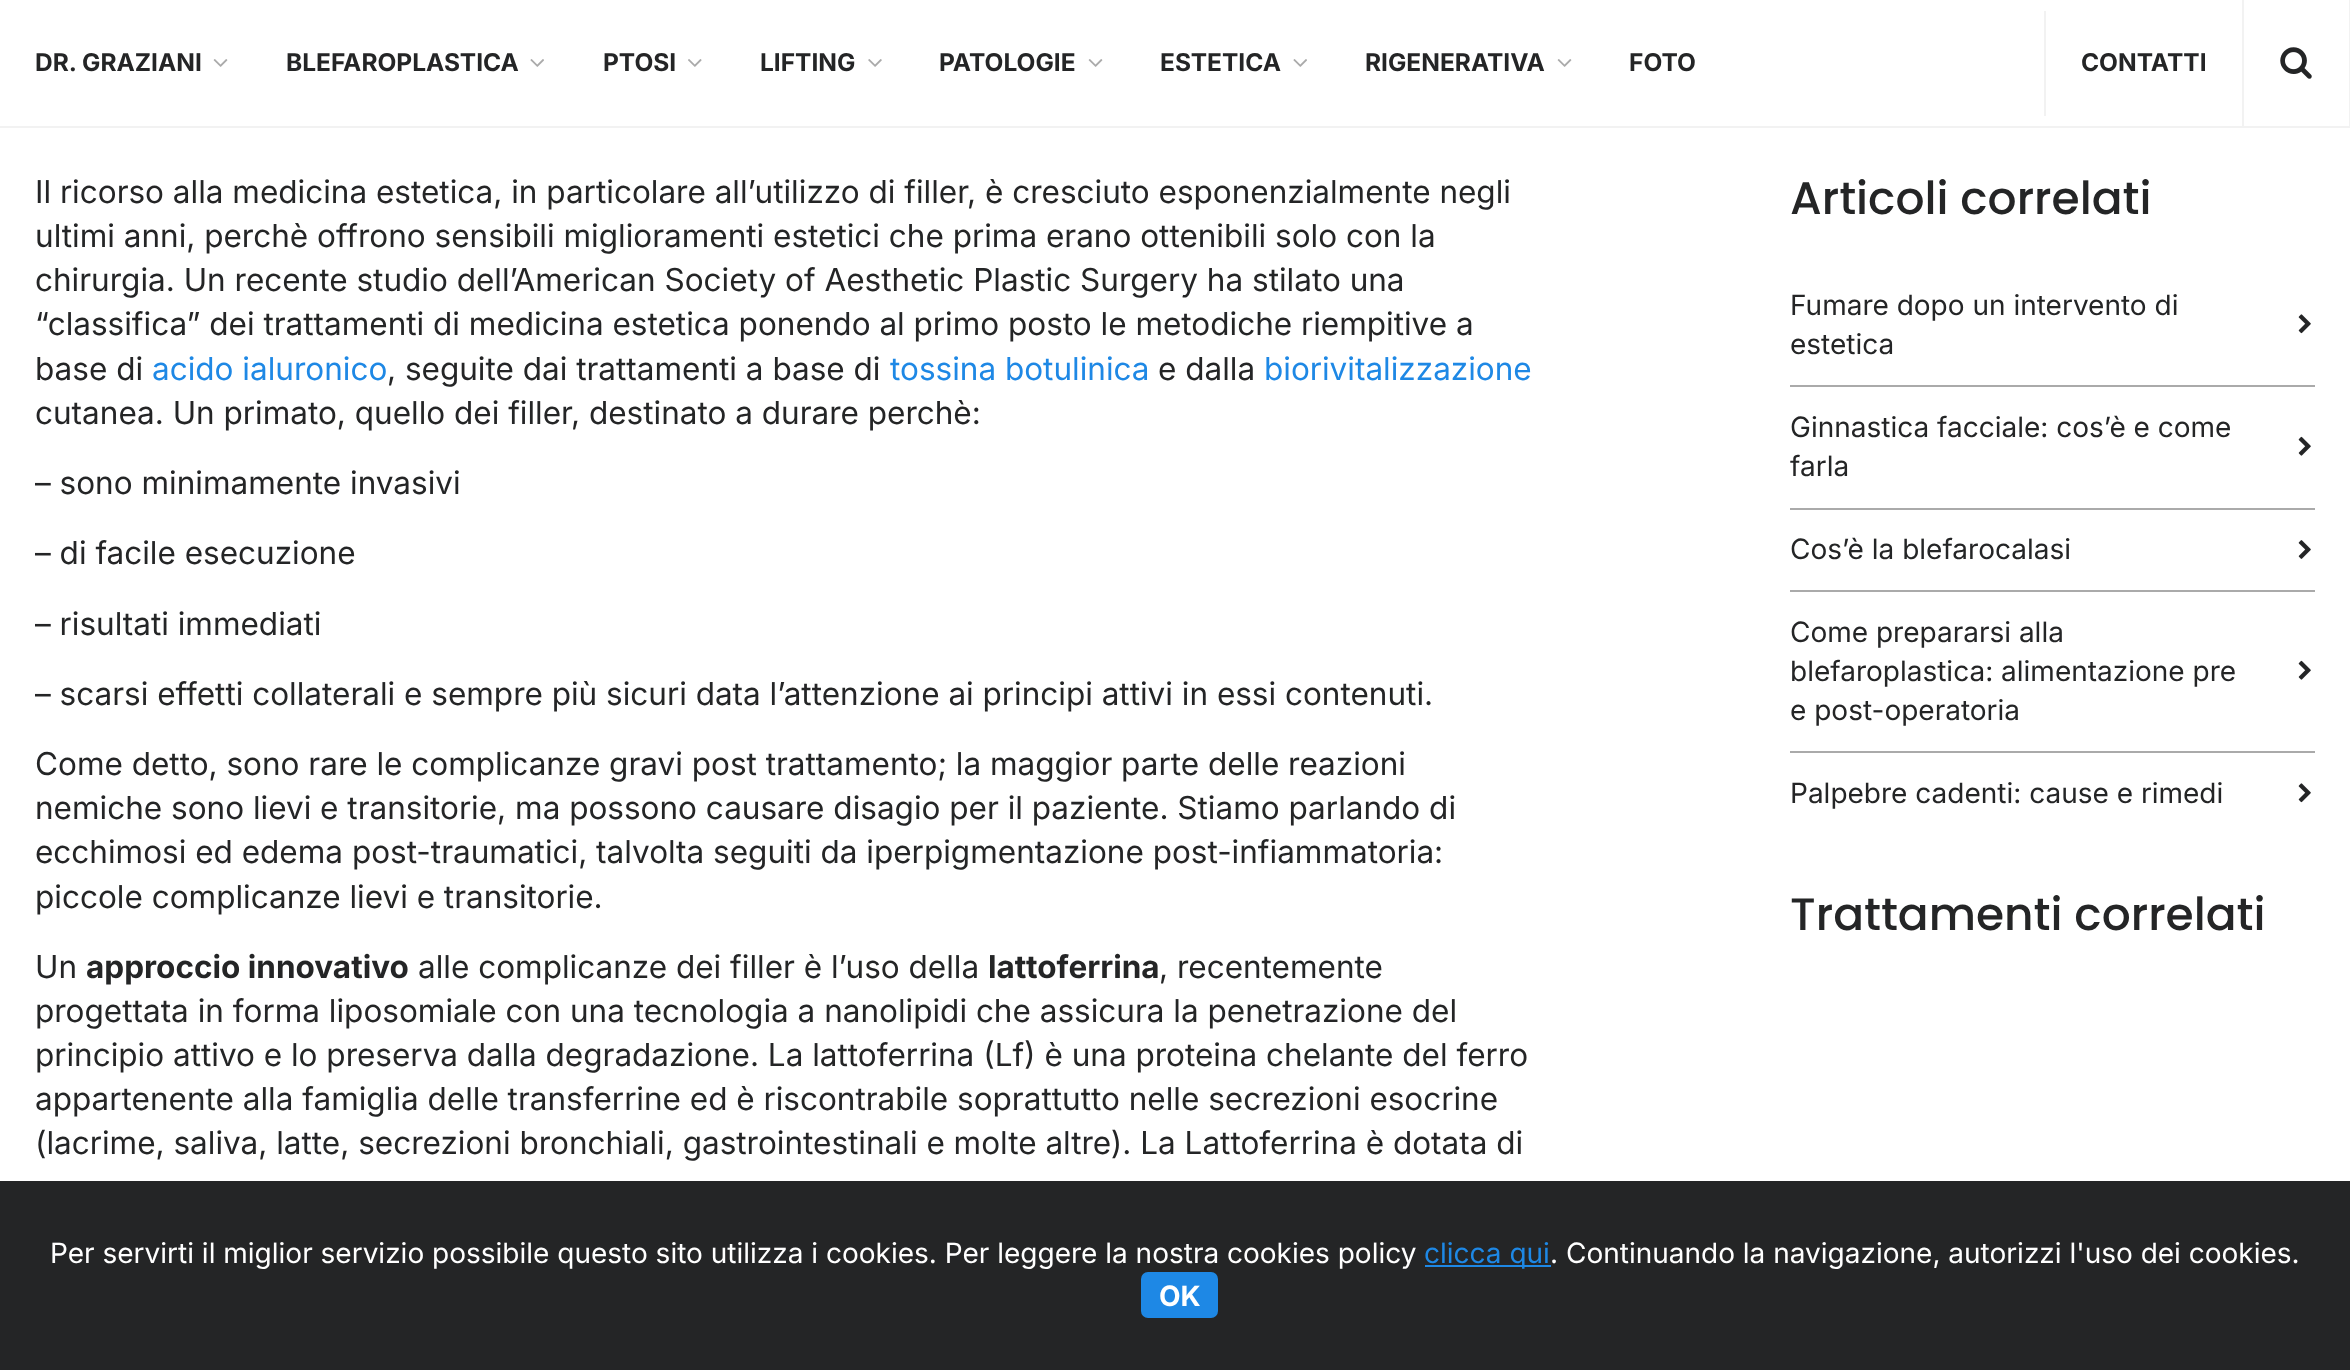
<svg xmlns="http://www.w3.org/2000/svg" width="2350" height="1370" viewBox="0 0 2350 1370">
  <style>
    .t1 { font: bold 24.5px Inter; fill: #242526; }
    .t2 { font: 31.5px Inter; fill: #242526; }
    .t3 { font: 31.5px Inter; fill: #1e88e5; }
    .t4 { font: bold 31.5px Inter; fill: #242526; }
    .t5 { font: 500 45.5px Poppins; fill: #242526; }
    .t6 { font: 28px Inter; fill: #242526; }
    .t7 { font: 28px Inter; fill: #fff; }
    .t8 { font: 28px Inter; fill: #1e88e5; }
    .t9 { font: bold 28px Inter; fill: #fff; }
  </style>
  <rect width="100%" height="100%" fill="#fff"/>
  <rect x="0" y="126" width="2350" height="2" fill="#f2f2f2"/>
  <text x="35" y="71" class="t1">DR. GRAZIANI</text>
  <image x="213" y="59" width="15" height="8" href="images/1.png"/>
  <text x="286" y="71" class="t1">BLEFAROPLASTICA</text>
  <image x="530" y="59" width="14" height="8" href="images/2.png"/>
  <text x="603" y="71" class="t1">PTOSI</text>
  <image x="688" y="59" width="14" height="8" href="images/3.png"/>
  <text x="760" y="71" class="t1">LIFTING</text>
  <image x="868" y="59" width="14" height="8" href="images/4.png"/>
  <text x="939" y="71" class="t1">PATOLOGIE</text>
  <image x="1088" y="59" width="15" height="8" href="images/1.png"/>
  <text x="1160" y="71" class="t1">ESTETICA</text>
  <image x="1293" y="59" width="14" height="8" href="images/2.png"/>
  <text x="1365" y="71" class="t1">RIGENERATIVA</text>
  <image x="1557" y="59" width="15" height="8" href="images/1.png"/>
  <text x="1629" y="71" class="t1">FOTO</text>
  <rect x="2044" y="11" width="2" height="105" fill="#f2f2f2"/>
  <text x="2081" y="71" class="t1">CONTATTI</text>
  <rect x="2349" y="0" width="1" height="126" fill="#f2f2f2"/>
  <rect x="2242" y="0" width="2" height="126" fill="#f2f2f2"/>
  <image x="2280" y="47" width="32" height="32" href="images/5.png"/>
  <text x="35" y="203" class="t2">Il ricorso alla medicina estetica, in particolare all’utilizzo di filler, è cresciuto esponenzialmente negli</text>
  <text x="35" y="247" class="t2">ultimi anni, perchè offrono sensibili miglioramenti estetici che prima erano ottenibili solo con la</text>
  <text x="35" y="291" class="t2">chirurgia. Un recente studio dell’American Society of Aesthetic Plastic Surgery ha stilato una</text>
  <text x="35" y="335" class="t2">“classifica” dei trattamenti di medicina estetica ponendo al primo posto le metodiche riempitive a</text>
  <text x="35" y="380" class="t2">base di</text>
  <text x="152" y="380" class="t3">acido ialuronico</text>
  <text x="387" y="380" class="t2">, seguite dai trattamenti a base di</text>
  <text x="890" y="380" class="t3">tossina botulinica</text>
  <text x="1158" y="380" class="t2">e dalla</text>
  <text x="1264" y="380" class="t3">biorivitalizzazione</text>
  <text x="35" y="424" class="t2">cutanea. Un primato, quello dei filler, destinato a durare perchè:</text>
  <text x="35" y="494" class="t2">– sono minimamente invasivi</text>
  <text x="35" y="564" class="t2">– di facile esecuzione</text>
  <text x="35" y="635" class="t2">– risultati immediati</text>
  <text x="35" y="705" class="t2">– scarsi effetti collaterali e sempre più sicuri data l’attenzione ai principi attivi in essi contenuti.</text>
  <text x="35" y="775" class="t2">Come detto, sono rare le complicanze gravi post trattamento; la maggior parte delle reazioni</text>
  <text x="35" y="819" class="t2">nemiche sono lievi e transitorie, ma possono causare disagio per il paziente. Stiamo parlando di</text>
  <text x="35" y="863" class="t2">ecchimosi ed edema post-traumatici, talvolta seguiti da iperpigmentazione post-infiammatoria:</text>
  <text x="35" y="908" class="t2">piccole complicanze lievi e transitorie.</text>
  <text x="35" y="978" class="t2">Un</text>
  <text x="86" y="978" class="t4">approccio innovativo</text>
  <text x="418" y="978" class="t2">alle complicanze dei filler è l’uso della</text>
  <text x="988" y="978" class="t4">lattoferrina</text>
  <text x="1159" y="978" class="t2">, recentemente</text>
  <text x="35" y="1022" class="t2">progettata in forma liposomiale con una tecnologia a nanolipidi che assicura la penetrazione del</text>
  <text x="35" y="1066" class="t2">principio attivo e lo preserva dalla degradazione. La lattoferrina (Lf) è una proteina chelante del ferro</text>
  <text x="35" y="1110" class="t2">appartenente alla famiglia delle transferrine ed è riscontrabile soprattutto nelle secrezioni esocrine</text>
  <text x="35" y="1154" class="t2">(lacrime, saliva, latte, secrezioni bronchiali, gastrointestinali e molte altre). La Lattoferrina è dotata di</text>
  <text x="1790" y="214" class="t5">Articoli correlati</text>
  <text x="1790" y="315" class="t6">Fumare dopo un intervento di</text>
  <text x="1790" y="354" class="t6">estetica</text>
  <image x="2298" y="314" width="13" height="20" href="images/6.png"/>
  <rect x="1790" y="385" width="525" height="2" fill="#aaa"/>
  <text x="1790" y="437" class="t6">Ginnastica facciale: cos’è e come</text>
  <text x="1790" y="476" class="t6">farla</text>
  <image x="2298" y="436" width="13" height="20" href="images/7.png"/>
  <rect x="1790" y="508" width="525" height="2" fill="#aaa"/>
  <text x="1790" y="559" class="t6">Cos’è la blefarocalasi</text>
  <image x="2298" y="540" width="13" height="19" href="images/8.png"/>
  <rect x="1790" y="590" width="525" height="2" fill="#aaa"/>
  <text x="1790" y="642" class="t6">Come prepararsi alla</text>
  <text x="1790" y="681" class="t6">blefaroplastica: alimentazione pre</text>
  <text x="1790" y="720" class="t6">e post-operatoria</text>
  <image x="2298" y="660" width="13" height="20" href="images/7.png"/>
  <rect x="1790" y="751" width="525" height="2" fill="#aaa"/>
  <text x="1790" y="803" class="t6">Palpebre cadenti: cause e rimedi</text>
  <image x="2298" y="783" width="13" height="20" href="images/6.png"/>
  <text x="1790" y="930" class="t5">Trattamenti correlati</text>
  <rect x="0" y="1181" width="2350" height="189" fill="#242526"/>
  <text x="50" y="1263" class="t7">Per servirti il miglior servizio possibile questo sito utilizza i cookies. Per leggere la nostra cookies policy</text>
  <rect x="1425" y="1265" width="126" height="2" fill="#1e88e5"/>
  <text x="1424" y="1263" class="t8">clicca qui</text>
  <text x="1550" y="1263" class="t7">. Continuando la navigazione, autorizzi l'uso dei cookies.</text>
  <rect x="1141" y="1272" width="77" height="46" rx="7" fill="#1e88e5"/>
  <text x="1159" y="1306" class="t9">OK</text>
</svg>
